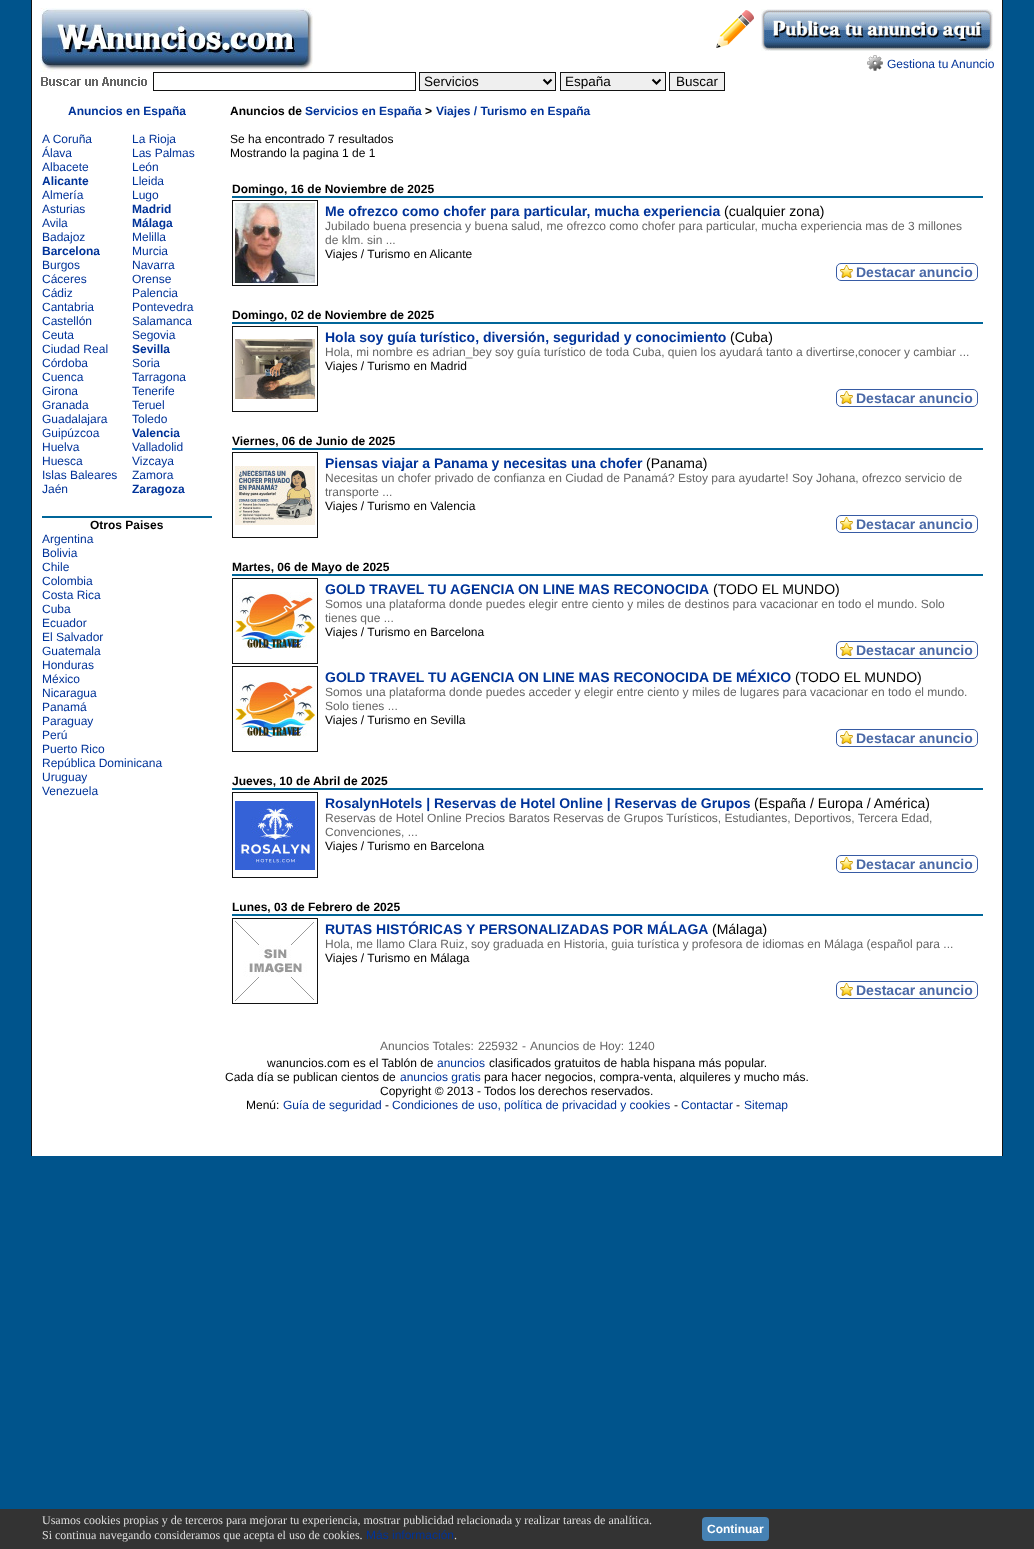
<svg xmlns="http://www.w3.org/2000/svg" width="1034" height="1549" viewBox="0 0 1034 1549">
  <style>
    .t1 { font: 12px Liberation Sans; fill: #039; }
    .t2 { font: 13.5px Liberation Sans; fill: #000; }
    .t3 { font: bold 12px Liberation Sans; fill: #039; }
    .t4 { font: bold 12px Liberation Sans; fill: #000; }
    .t5 { font: 12px Liberation Sans; fill: #000; }
    .t6 { font: bold 14px Liberation Sans; fill: #039; }
    .t7 { font: 14px Liberation Sans; fill: #000; }
    .t8 { font: 12px Liberation Sans; fill: #666; }
    .t9 { font: bold 14px Liberation Sans; fill: #4a69a7; }
    .t10 { font: 12px Liberation Serif; fill: #ddd; }
    .t11 { font: bold 12px Liberation Sans; fill: #fff; }
  </style>
  <rect width="100%" height="100%" fill="#00548c"/>
  <rect x="32" y="0" width="970" height="1156" fill="#fff"/>
  <rect x="1002" y="0" width="1" height="1156" fill="#121212"/>
  <rect x="31" y="0" width="1" height="1156" fill="#121212"/>
  <image x="40" y="8" width="273" height="64" href="images/1.png"/>
  <image x="716" y="10" width="38" height="38" href="images/2.png"/>
  <image x="761" y="9" width="232" height="42" href="images/3.png"/>
  <image x="867" y="55" width="16" height="16" href="images/4.png"/>
  <text x="887" y="68" class="t1">Gestiona tu Anuncio</text>
  <image x="41" y="77" width="106" height="9" href="images/5.png"/>
  <rect x="153.5" y="72.5" width="262" height="18" fill="none" stroke="#121212"/>
  <rect x="419.5" y="72.5" width="136" height="18" fill="#efefef" stroke="#121212"/>
  <path d="M543.5 79.5L547.5 83.5L551.5 79.5" fill="none" stroke="#000" stroke-width="2"/>
  <text x="424" y="86" class="t2">Servicios</text>
  <rect x="560.5" y="72.5" width="105" height="18" fill="#efefef" stroke="#121212"/>
  <path d="M652.5 79.5L656.5 83.5L660.5 79.5" fill="none" stroke="#000" stroke-width="2"/>
  <text x="565" y="86" class="t2">España</text>
  <rect x="669.5" y="72.5" width="55" height="18" fill="#efefef" stroke="#121212"/>
  <text x="676" y="86" class="t2">Buscar</text>
  <text x="68" y="115" class="t3">Anuncios en España</text>
  <text x="42" y="143" class="t1">A Coruña</text>
  <text x="42" y="157" class="t1">Álava</text>
  <text x="42" y="171" class="t1">Albacete</text>
  <text x="42" y="185" class="t3">Alicante</text>
  <text x="42" y="199" class="t1">Almería</text>
  <text x="42" y="213" class="t1">Asturias</text>
  <text x="42" y="227" class="t1">Avila</text>
  <text x="42" y="241" class="t1">Badajoz</text>
  <text x="42" y="255" class="t3">Barcelona</text>
  <text x="42" y="269" class="t1">Burgos</text>
  <text x="42" y="283" class="t1">Cáceres</text>
  <text x="42" y="297" class="t1">Cádiz</text>
  <text x="42" y="311" class="t1">Cantabria</text>
  <text x="42" y="325" class="t1">Castellón</text>
  <text x="42" y="339" class="t1">Ceuta</text>
  <text x="42" y="353" class="t1">Ciudad Real</text>
  <text x="42" y="367" class="t1">Córdoba</text>
  <text x="42" y="381" class="t1">Cuenca</text>
  <text x="42" y="395" class="t1">Girona</text>
  <text x="42" y="409" class="t1">Granada</text>
  <text x="42" y="423" class="t1">Guadalajara</text>
  <text x="42" y="437" class="t1">Guipúzcoa</text>
  <text x="42" y="451" class="t1">Huelva</text>
  <text x="42" y="465" class="t1">Huesca</text>
  <text x="42" y="479" class="t1">Islas Baleares</text>
  <text x="42" y="493" class="t1">Jaén</text>
  <text x="132" y="143" class="t1">La Rioja</text>
  <text x="132" y="157" class="t1">Las Palmas</text>
  <text x="132" y="171" class="t1">León</text>
  <text x="132" y="185" class="t1">Lleida</text>
  <text x="132" y="199" class="t1">Lugo</text>
  <text x="132" y="213" class="t3">Madrid</text>
  <text x="132" y="227" class="t3">Málaga</text>
  <text x="132" y="241" class="t1">Melilla</text>
  <text x="132" y="255" class="t1">Murcia</text>
  <text x="132" y="269" class="t1">Navarra</text>
  <text x="132" y="283" class="t1">Orense</text>
  <text x="132" y="297" class="t1">Palencia</text>
  <text x="132" y="311" class="t1">Pontevedra</text>
  <text x="132" y="325" class="t1">Salamanca</text>
  <text x="132" y="339" class="t1">Segovia</text>
  <text x="132" y="353" class="t3">Sevilla</text>
  <text x="132" y="367" class="t1">Soria</text>
  <text x="132" y="381" class="t1">Tarragona</text>
  <text x="132" y="395" class="t1">Tenerife</text>
  <text x="132" y="409" class="t1">Teruel</text>
  <text x="132" y="423" class="t1">Toledo</text>
  <text x="132" y="437" class="t3">Valencia</text>
  <text x="132" y="451" class="t1">Valladolid</text>
  <text x="132" y="465" class="t1">Vizcaya</text>
  <text x="132" y="479" class="t1">Zamora</text>
  <text x="132" y="493" class="t3">Zaragoza</text>
  <rect x="42" y="516" width="170" height="2" fill="#069"/>
  <text x="90" y="529" class="t4">Otros Paises</text>
  <text x="42" y="543" class="t1">Argentina</text>
  <text x="42" y="557" class="t1">Bolivia</text>
  <text x="42" y="571" class="t1">Chile</text>
  <text x="42" y="585" class="t1">Colombia</text>
  <text x="42" y="599" class="t1">Costa Rica</text>
  <text x="42" y="613" class="t1">Cuba</text>
  <text x="42" y="627" class="t1">Ecuador</text>
  <text x="42" y="641" class="t1">El Salvador</text>
  <text x="42" y="655" class="t1">Guatemala</text>
  <text x="42" y="669" class="t1">Honduras</text>
  <text x="42" y="683" class="t1">México</text>
  <text x="42" y="697" class="t1">Nicaragua</text>
  <text x="42" y="711" class="t1">Panamá</text>
  <text x="42" y="725" class="t1">Paraguay</text>
  <text x="42" y="739" class="t1">Perú</text>
  <text x="42" y="753" class="t1">Puerto Rico</text>
  <text x="42" y="767" class="t1">República Dominicana</text>
  <text x="42" y="781" class="t1">Uruguay</text>
  <text x="42" y="795" class="t1">Venezuela</text>
  <text x="230" y="115" class="t4">Anuncios de</text>
  <text x="305" y="115" class="t3">Servicios en España</text>
  <text x="425" y="115" class="t4">&gt;</text>
  <text x="436" y="115" class="t3">Viajes / Turismo en España</text>
  <text x="230" y="143" class="t5">Se ha encontrado 7 resultados</text>
  <text x="230" y="157" class="t5">Mostrando la pagina 1 de 1</text>
  <rect x="232" y="196" width="751" height="2" fill="#069"/>
  <text x="232" y="193" class="t4">Domingo, 16 de Noviembre de 2025</text>
  <rect x="232.5" y="200.5" width="85" height="85" fill="none" stroke="#121212"/>
  <image x="235" y="203" width="80" height="80" href="images/6.png"/>
  <text x="325" y="216" class="t6">Me ofrezco como chofer para particular, mucha experiencia</text>
  <text x="724" y="216" class="t7">(cualquier zona)</text>
  <text x="325" y="230" class="t8">Jubilado buena presencia y buena salud, me ofrezco como chofer para particular, mucha experiencia mas de 3 millones</text>
  <text x="325" y="244" class="t8">de klm. sin ...</text>
  <text x="325" y="258" class="t5">Viajes / Turismo en Alicante</text>
  <image x="840" y="265" width="13" height="13" href="images/7.png"/>
  <rect x="836.5" y="263.5" width="141" height="17" rx="4.5" fill="none" stroke="#375ba4"/>
  <text x="856" y="277" class="t9">Destacar anuncio</text>
  <rect x="232" y="322" width="751" height="2" fill="#069"/>
  <text x="232" y="319" class="t4">Domingo, 02 de Noviembre de 2025</text>
  <rect x="232.5" y="326.5" width="85" height="85" fill="none" stroke="#121212"/>
  <image x="235" y="339" width="80" height="60" href="images/8.png"/>
  <text x="325" y="342" class="t6">Hola soy guía turístico, diversión, seguridad y conocimiento</text>
  <text x="730" y="342" class="t7">(Cuba)</text>
  <text x="325" y="356" class="t8">Hola, mi nombre es adrian_bey soy guía turístico de toda Cuba, quien los ayudará tanto a divertirse,conocer y cambiar ...</text>
  <text x="325" y="370" class="t5">Viajes / Turismo en Madrid</text>
  <image x="840" y="391" width="13" height="13" href="images/7.png"/>
  <rect x="836.5" y="389.5" width="141" height="17" rx="4.5" fill="none" stroke="#375ba4"/>
  <text x="856" y="403" class="t9">Destacar anuncio</text>
  <rect x="232" y="448" width="751" height="2" fill="#069"/>
  <text x="232" y="445" class="t4">Viernes, 06 de Junio de 2025</text>
  <rect x="232.5" y="452.5" width="85" height="85" fill="none" stroke="#121212"/>
  <image x="235" y="466" width="80" height="59" href="images/9.png"/>
  <text x="325" y="468" class="t6">Piensas viajar a Panama y necesitas una chofer</text>
  <text x="646" y="468" class="t7">(Panama)</text>
  <text x="325" y="482" class="t8">Necesitas un chofer privado de confianza en Ciudad de Panamá? Estoy para ayudarte! Soy Johana, ofrezco servicio de</text>
  <text x="325" y="496" class="t8">transporte ...</text>
  <text x="325" y="510" class="t5">Viajes / Turismo en Valencia</text>
  <image x="840" y="517" width="13" height="13" href="images/7.png"/>
  <rect x="836.5" y="515.5" width="141" height="17" rx="4.5" fill="none" stroke="#375ba4"/>
  <text x="856" y="529" class="t9">Destacar anuncio</text>
  <rect x="232" y="574" width="751" height="2" fill="#069"/>
  <text x="232" y="571" class="t4">Martes, 06 de Mayo de 2025</text>
  <rect x="232.5" y="578.5" width="85" height="85" fill="none" stroke="#121212"/>
  <image x="235" y="592" width="80" height="58" href="images/10.png"/>
  <text x="325" y="594" class="t6">GOLD TRAVEL TU AGENCIA ON LINE MAS RECONOCIDA</text>
  <text x="713" y="594" class="t7">(TODO EL MUNDO)</text>
  <text x="325" y="608" class="t8">Somos una plataforma donde puedes elegir entre ciento y miles de destinos para vacacionar en todo el mundo. Solo</text>
  <text x="325" y="622" class="t8">tienes que ...</text>
  <text x="325" y="636" class="t5">Viajes / Turismo en Barcelona</text>
  <image x="840" y="643" width="13" height="13" href="images/7.png"/>
  <rect x="836.5" y="641.5" width="141" height="17" rx="4.5" fill="none" stroke="#375ba4"/>
  <text x="856" y="655" class="t9">Destacar anuncio</text>
  <rect x="232.5" y="666.5" width="85" height="85" fill="none" stroke="#121212"/>
  <image x="235" y="680" width="80" height="58" href="images/10.png"/>
  <text x="325" y="682" class="t6">GOLD TRAVEL TU AGENCIA ON LINE MAS RECONOCIDA DE MÉXICO</text>
  <text x="795" y="682" class="t7">(TODO EL MUNDO)</text>
  <text x="325" y="696" class="t8">Somos una plataforma donde puedes acceder y elegir entre ciento y miles de lugares para vacacionar en todo el mundo.</text>
  <text x="325" y="710" class="t8">Solo tienes ...</text>
  <text x="325" y="724" class="t5">Viajes / Turismo en Sevilla</text>
  <image x="840" y="731" width="13" height="13" href="images/7.png"/>
  <rect x="836.5" y="729.5" width="141" height="17" rx="4.5" fill="none" stroke="#375ba4"/>
  <text x="856" y="743" class="t9">Destacar anuncio</text>
  <rect x="232" y="788" width="751" height="2" fill="#069"/>
  <text x="232" y="785" class="t4">Jueves, 10 de Abril de 2025</text>
  <rect x="232.5" y="792.5" width="85" height="85" fill="none" stroke="#121212"/>
  <image x="235" y="801" width="80" height="69" href="images/11.png"/>
  <text x="325" y="808" class="t6">RosalynHotels | Reservas de Hotel Online | Reservas de Grupos</text>
  <text x="754" y="808" class="t7">(España / Europa / América)</text>
  <text x="325" y="822" class="t8">Reservas de Hotel Online Precios Baratos Reservas de Grupos Turísticos, Estudiantes, Deportivos, Tercera Edad,</text>
  <text x="325" y="836" class="t8">Convenciones, ...</text>
  <text x="325" y="850" class="t5">Viajes / Turismo en Barcelona</text>
  <image x="840" y="857" width="13" height="13" href="images/7.png"/>
  <rect x="836.5" y="855.5" width="141" height="17" rx="4.5" fill="none" stroke="#375ba4"/>
  <text x="856" y="869" class="t9">Destacar anuncio</text>
  <rect x="232" y="914" width="751" height="2" fill="#069"/>
  <text x="232" y="911" class="t4">Lunes, 03 de Febrero de 2025</text>
  <rect x="232.5" y="918.5" width="85" height="85" fill="none" stroke="#121212"/>
  <image x="235" y="921" width="79" height="80" href="images/12.png"/>
  <text x="325" y="934" class="t6">RUTAS HISTÓRICAS Y PERSONALIZADAS POR MÁLAGA</text>
  <text x="712" y="934" class="t7">(Málaga)</text>
  <text x="325" y="948" class="t8">Hola, me llamo Clara Ruiz, soy graduada en Historia, guia turística y profesora de idiomas en Málaga (español para ...</text>
  <text x="325" y="962" class="t5">Viajes / Turismo en Málaga</text>
  <image x="840" y="983" width="13" height="13" href="images/7.png"/>
  <rect x="836.5" y="981.5" width="141" height="17" rx="4.5" fill="none" stroke="#375ba4"/>
  <text x="856" y="995" class="t9">Destacar anuncio</text>
  <text x="380" y="1050" class="t8">Anuncios Totales:</text>
  <text x="478" y="1050" class="t8">225932</text>
  <text x="522" y="1050" class="t8">-</text>
  <text x="530" y="1050" class="t8">Anuncios de Hoy:</text>
  <text x="628" y="1050" class="t8">1240</text>
  <text x="267" y="1067" class="t5">wanuncios.com es el Tablón de</text>
  <text x="437" y="1067" class="t1">anuncios</text>
  <text x="489" y="1067" class="t5">clasificados gratuitos de habla hispana más popular.</text>
  <text x="225" y="1081" class="t5">Cada día se publican cientos de</text>
  <text x="400" y="1081" class="t1">anuncios gratis</text>
  <text x="484" y="1081" class="t5">para hacer negocios, compra-venta, alquileres y mucho más.</text>
  <text x="380" y="1095" class="t5">Copyright © 2013 - Todos los derechos reservados.</text>
  <text x="246" y="1109" class="t5">Menú:</text>
  <text x="283" y="1109" class="t1">Guía de seguridad</text>
  <text x="385" y="1109" class="t5">-</text>
  <text x="392" y="1109" class="t1">Condiciones de uso, política de privacidad y cookies</text>
  <text x="674" y="1109" class="t5">-</text>
  <text x="681" y="1109" class="t1">Contactar</text>
  <text x="736" y="1109" class="t5">-</text>
  <text x="744" y="1109" class="t1">Sitemap</text>
  <rect x="0" y="1509" width="1034" height="40" fill="#333"/>
  <text x="42" y="1524" class="t10">Usamos cookies propias y de terceros para mejorar tu experiencia, mostrar publicidad relacionada y realizar tareas de analítica.</text>
  <text x="42" y="1539" class="t10">Si continua navegando consideramos que acepta el uso de cookies.</text>
  <text x="366" y="1539" class="t1">Más información</text>
  <text x="454" y="1539" class="t10">.</text>
  <rect x="702" y="1517" width="67" height="24" rx="4" fill="#4682b4"/>
  <text x="707" y="1533" class="t11">Continuar</text>
</svg>
